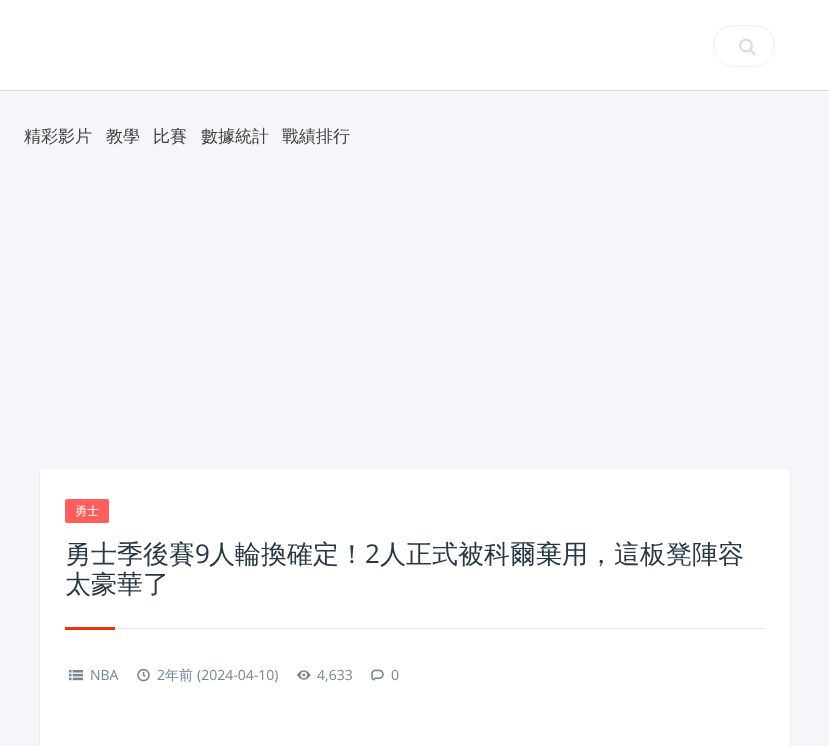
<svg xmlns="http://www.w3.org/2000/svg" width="829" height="746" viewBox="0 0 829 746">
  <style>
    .t1 { font: 500 17px WenQuanYi Zen Hei; fill: #404040; }
    .t2 { font: 500 12px WenQuanYi Zen Hei; fill: #fff; }
    .t3 { font: 500 26px WenQuanYi Zen Hei; fill: #273746; }
    .t4 { font: 26px Open Sans; fill: #273746; }
    .t5 { font: 14px Open Sans; fill: #748594; }
    .t6 { font: 500 14px WenQuanYi Zen Hei; fill: #748594; }
  </style>
  <rect width="100%" height="100%" fill="#f5f6f9"/>
  <rect x="0" y="1" width="829" height="90" fill="#0000001a" filter="blur(0.5px)"/>
  <rect x="0" y="0" width="829" height="90" fill="#fff"/>
  <rect x="713.5" y="25.5" width="61" height="41" rx="20.5" fill="none" stroke="#efefef"/>
  <image x="739" y="38" width="17" height="18" href="images/1.png"/>
  <text x="24" y="142" class="t1">精彩影片</text>
  <text x="106" y="142" class="t1">教學</text>
  <text x="153" y="142" class="t1">比賽</text>
  <text x="201" y="142" class="t1">數據統計</text>
  <text x="282" y="142" class="t1">戰績排行</text>
  <rect x="40" y="470" width="750" height="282" rx="3" fill="#0000001a" filter="blur(1px)"/>
  <rect x="40" y="469" width="750" height="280" rx="3" fill="#fff"/>
  <rect x="65" y="499" width="44" height="24" rx="2" fill="#ff5e5c"/>
  <text x="75" y="515" class="t2">勇士</text>
  <rect x="115" y="628" width="650" height="1" fill="#e7e7e7"/>
  <text x="65" y="563" class="t3">勇士季後賽</text>
  <text x="195" y="563" class="t4">9</text>
  <text x="209" y="563" class="t3">人輪換確定！</text>
  <text x="365" y="563" class="t4">2</text>
  <text x="380" y="563" class="t3">人正式被科爾棄用，這板凳陣容</text>
  <text x="65" y="593" class="t3">太豪華了</text>
  <rect x="65" y="627" width="50" height="3" fill="#ef2f09"/>
  <image x="69" y="670" width="14" height="11" href="images/2.png"/>
  <text x="90" y="680" class="t5">NBA</text>
  <image x="137" y="668" width="13" height="14" href="images/3.png"/>
  <text x="157" y="680" class="t5">2</text>
  <text x="165" y="680" class="t6">年前</text>
  <text x="197" y="680" class="t5">(2024-04-10)</text>
  <image x="297" y="670" width="14" height="10" href="images/4.png"/>
  <text x="317" y="680" class="t5">4,633</text>
  <image x="371" y="669" width="13" height="12" href="images/5.png"/>
  <text x="391" y="680" class="t5">0</text>
</svg>
